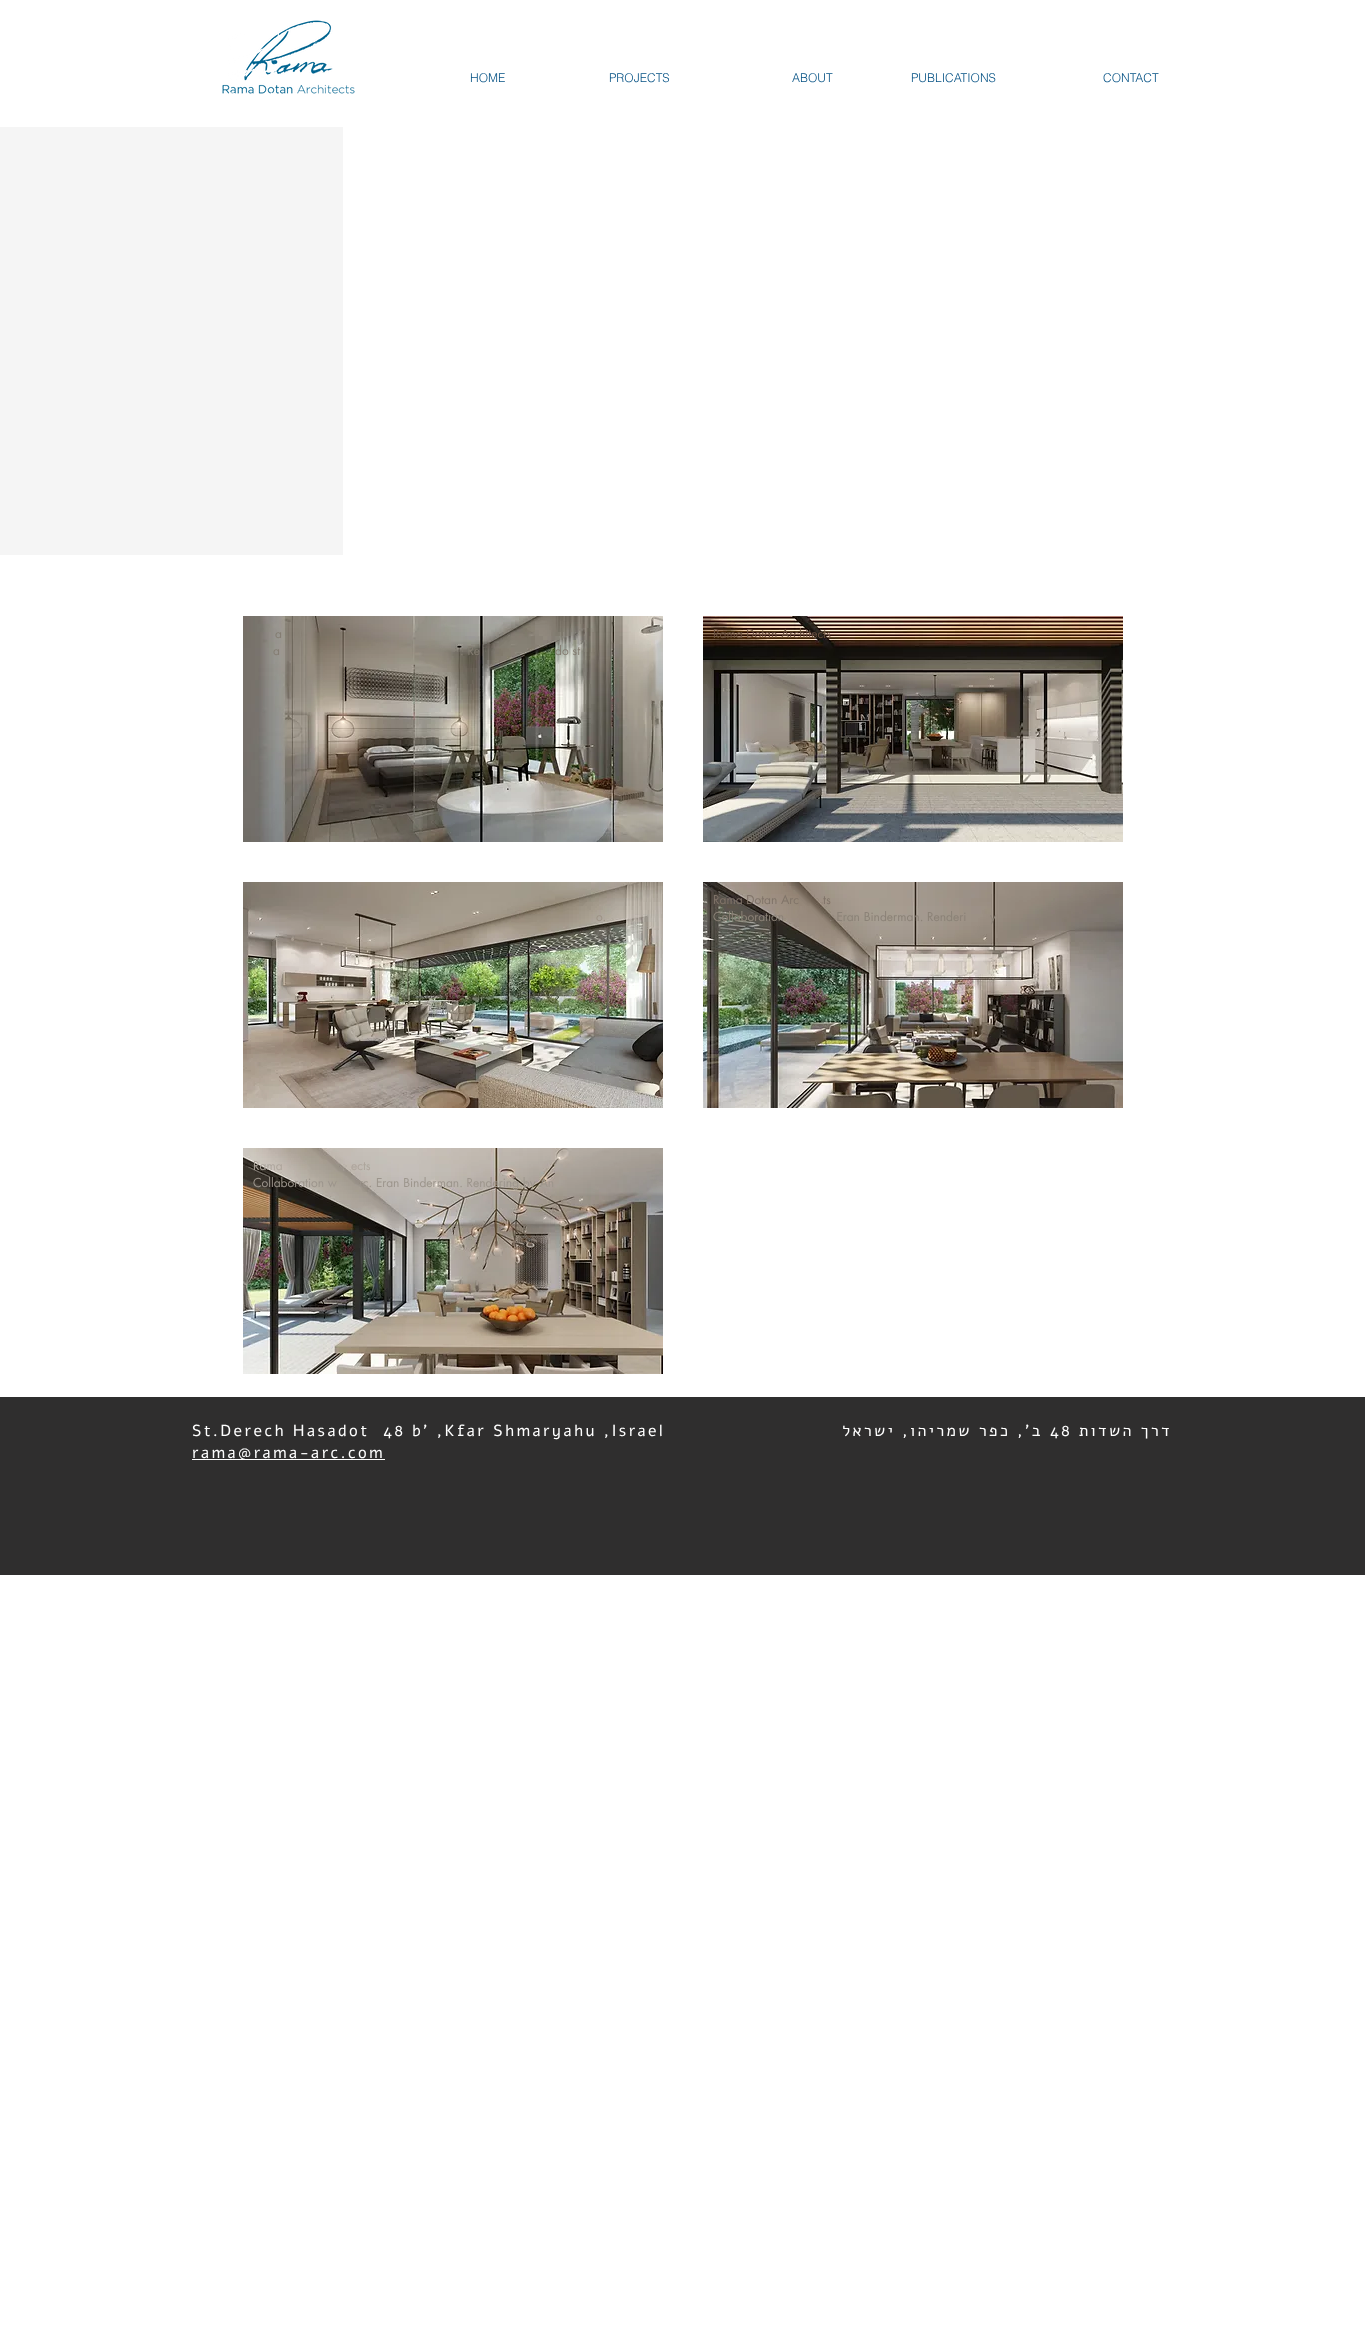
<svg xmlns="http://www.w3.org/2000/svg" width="1365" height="2335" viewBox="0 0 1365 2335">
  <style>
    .t1 { font: 300 12px helvetica; fill: #045184; }
    .t2 { font: 12px futura; fill: #847d72; }
    .t3 { font: 12px futura; fill: #6a513f; }
    .t4 { font: 12px futura; fill: #9d9285; }
    .t5 { font: 12px futura; fill: #807469; }
    .t6 { font: 12px futura; fill: #8b8277; }
    .t7 { font: 12px futura; fill: #ada59c; }
    .t8 { font: 12px futura; fill: #9c958c; }
    .t9 { font: 16px Alef; letter-spacing: 2.4px; fill: #fff; }
    .t10 { font: 16px Alef; letter-spacing: 2.4px; direction: rtl; fill: #fff; }
  </style>
  <rect width="100%" height="100%" fill="#fff"/>
  <image x="222" y="20" width="133" height="74" href="images/1.png"/>
  <text x="470" y="82" class="t1">HOME</text>
  <text x="609" y="82" class="t1">PROJECTS</text>
  <text x="792" y="82" class="t1">ABOUT</text>
  <text x="911" y="82" class="t1">PUBLICATIONS</text>
  <text x="1103" y="82" class="t1">CONTACT</text>
  <image x="228" y="33" width="91" height="61" href="images/2.png"/>
  <rect x="0" y="127" width="343" height="428" fill="#f5f5f5"/>
  <image x="243" y="616" width="420" height="226" href="images/3.png"/>
  <text x="275" y="638" class="t2">a</text>
  <text x="273" y="655" class="t2">a</text>
  <text x="460" y="655" class="t2">. Re</text>
  <text x="555" y="655" class="t2">do st</text>
  <image x="703" y="616" width="420" height="226" href="images/4.png"/>
  <text x="713" y="638" class="t3">Rama Dotan Architects</text>
  <image x="243" y="882" width="420" height="226" href="images/5.png"/>
  <text x="596" y="921" class="t4">o.</text>
  <image x="703" y="882" width="420" height="226" href="images/6.png"/>
  <text x="713" y="904" class="t5">Rama Dotan Arc</text>
  <text x="823" y="904" class="t5">ts</text>
  <text x="713" y="921" class="t6">Collaboration</text>
  <text x="829" y="921" class="t6">. Eran Binderman. Renderi</text>
  <text x="990" y="921" class="t6">y</text>
  <image x="243" y="1148" width="420" height="226" href="images/7.png"/>
  <text x="253" y="1170" class="t7">Rama</text>
  <text x="351" y="1170" class="t7">ects</text>
  <text x="253" y="1187" class="t8">Collaboration w</text>
  <text x="359" y="1187" class="t8">rc. Eran Binderman. Rendering by An</text>
  <rect x="0" y="1397" width="1365" height="178" fill="#2f2e2e"/>
  <text x="192" y="1436" class="t9" xml:space="preserve">St.Derech Hasadot  48 b' ,Kfar Shmaryahu ,Israel</text>
  <rect x="192" y="1459" width="193" height="1" fill="#fff"/>
  <text x="192" y="1458" class="t9">rama@rama-arc.com</text>
  <text x="1043" y="1436" class="t10">ב', כפר שמריהו, ישראל</text>
  <text x="1050" y="1436" class="t9">48</text>
  <text x="1172" y="1436" class="t10">דרך השדות</text>
</svg>
